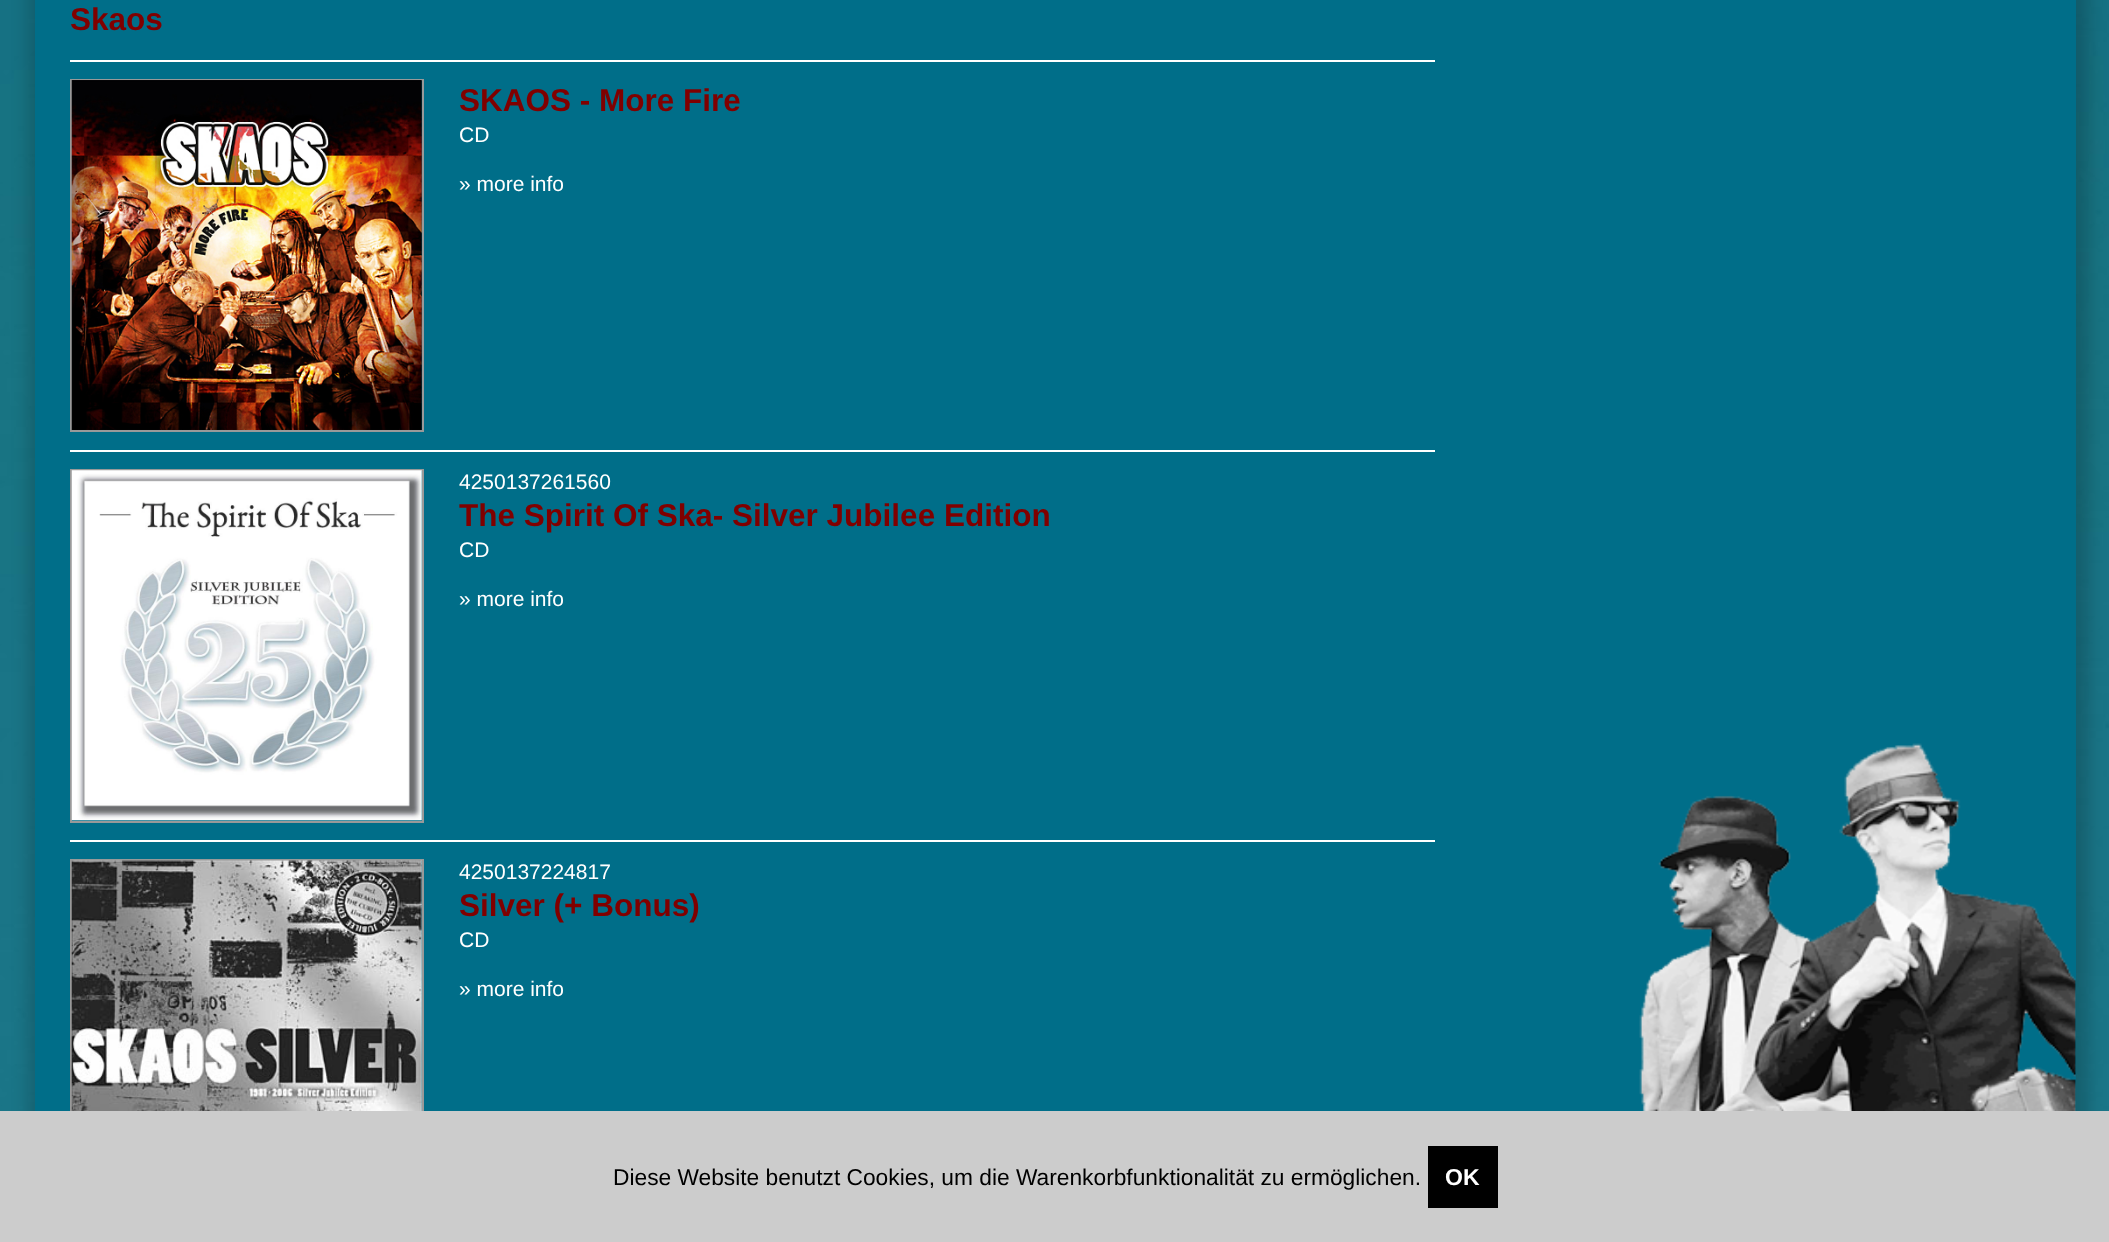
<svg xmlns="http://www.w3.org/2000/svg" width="2109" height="1242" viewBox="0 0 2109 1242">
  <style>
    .t1 { font: bold 31.5px Liberation Sans; fill: #800000; }
    .t2 { font: 21px Liberation Sans; fill: #fff; }
    .t3 { font: 22.75px Liberation Sans; fill: #000; }
    .t4 { font: bold 23px Liberation Sans; fill: #fff; }
  </style>
  <rect width="100%" height="100%" fill="#fff"/>
  <image x="0" y="0" width="2109" height="1111" href="images/1.png"/>
  <rect x="30" y="-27" width="2058" height="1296" fill="#00000033" filter="blur(9px)"/>
  <rect x="35" y="0" width="2041" height="1111" fill="#006e89"/>
  <rect x="70" y="60" width="1365" height="2" fill="#fff"/>
  <text x="70" y="30" class="t1">Skaos</text>
  <rect x="70" y="450" width="1365" height="2" fill="#fff"/>
  <rect x="71" y="80" width="352" height="351" fill="none" stroke="#999" stroke-width="2"/>
  <image x="71" y="80" width="351" height="350" href="images/2.png"/>
  <text x="459" y="111" class="t1">SKAOS - More Fire</text>
  <text x="459" y="142" class="t2">CD</text>
  <text x="459" y="191" class="t2">» more info</text>
  <rect x="70" y="840" width="1365" height="2" fill="#fff"/>
  <rect x="71" y="470" width="352" height="352" fill="none" stroke="#999" stroke-width="2"/>
  <image x="71" y="470" width="351" height="351" href="images/3.png"/>
  <text x="459" y="489" class="t2">4250137261560</text>
  <text x="459" y="526" class="t1">The Spirit Of Ska- Silver Jubilee Edition</text>
  <text x="459" y="557" class="t2">CD</text>
  <text x="459" y="606" class="t2">» more info</text>
  <rect x="71" y="860" width="352" height="317" fill="none" stroke="#999" stroke-width="2"/>
  <image x="71" y="860" width="351" height="251" href="images/4.png"/>
  <text x="459" y="879" class="t2">4250137224817</text>
  <text x="459" y="916" class="t1">Silver (+ Bonus)</text>
  <text x="459" y="947" class="t2">CD</text>
  <text x="459" y="996" class="t2">» more info</text>
  <image x="1639" y="743" width="437" height="368" href="images/5.png"/>
  <rect x="0" y="1111" width="2109" height="131" fill="#ccc"/>
  <text x="613" y="1185" class="t3">Diese Website benutzt Cookies, um die Warenkorbfunktionalität zu ermöglichen.</text>
  <rect x="1428" y="1146" width="70" height="62" fill="#000"/>
  <text x="1445" y="1185" class="t4">OK</text>
</svg>
